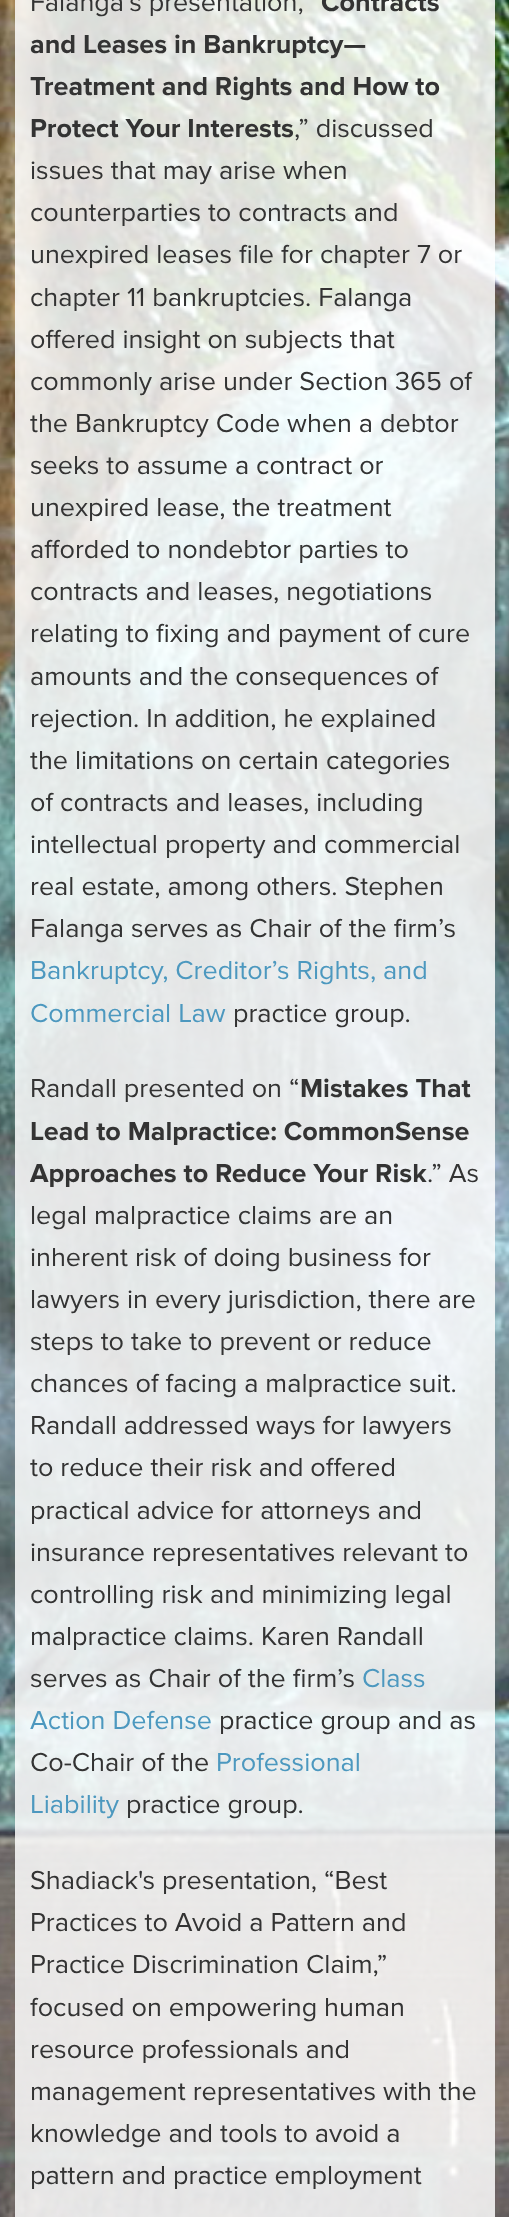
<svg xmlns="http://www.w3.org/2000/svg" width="509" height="2217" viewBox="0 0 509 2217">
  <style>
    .t1 { font: 27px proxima; fill: #333; }
    .t2 { font: bold 27px proxima; fill: #333; }
    .t3 { font: 27px proxima; fill: #4c98bf; }
  </style>
  <rect width="100%" height="100%" fill="#fff"/>
  <image x="0" y="0" width="509" height="2217" href="images/1.png"/>
  <text x="30" y="11" class="t1">Falanga’s presentation,</text>
  <text x="321" y="11" class="t2">Contracts</text>
  <text x="30" y="53" class="t2">and Leases in Bankruptcy—</text>
  <text x="30" y="95" class="t2">Treatment and Rights and How to</text>
  <text x="30" y="137" class="t2">Protect Your Interests</text>
  <text x="294" y="137" class="t1">,” discussed</text>
  <text x="30" y="179" class="t1">issues that may arise when</text>
  <text x="30" y="221" class="t1">counterparties to contracts and</text>
  <text x="30" y="263" class="t1">unexpired leases file for chapter 7 or</text>
  <text x="30" y="306" class="t1">chapter 11 bankruptcies. Falanga</text>
  <text x="30" y="348" class="t1">offered insight on subjects that</text>
  <text x="30" y="390" class="t1">commonly arise under Section 365 of</text>
  <text x="30" y="432" class="t1">the Bankruptcy Code when a debtor</text>
  <text x="30" y="474" class="t1">seeks to assume a contract or</text>
  <text x="30" y="516" class="t1">unexpired lease, the treatment</text>
  <text x="30" y="558" class="t1">afforded to nondebtor parties to</text>
  <text x="30" y="600" class="t1">contracts and leases, negotiations</text>
  <text x="30" y="642" class="t1">relating to fixing and payment of cure</text>
  <text x="30" y="685" class="t1">amounts and the consequences of</text>
  <text x="30" y="727" class="t1">rejection. In addition, he explained</text>
  <text x="30" y="769" class="t1">the limitations on certain categories</text>
  <text x="30" y="811" class="t1">of contracts and leases, including</text>
  <text x="30" y="853" class="t1">intellectual property and commercial</text>
  <text x="30" y="895" class="t1">real estate, among others. Stephen</text>
  <text x="30" y="937" class="t1">Falanga serves as Chair of the firm’s</text>
  <text x="30" y="979" class="t3">Bankruptcy, Creditor’s Rights, and</text>
  <text x="30" y="1022" class="t3">Commercial Law</text>
  <text x="233" y="1022" class="t1">practice group.</text>
  <text x="30" y="1097" class="t1">Randall presented on “</text>
  <text x="300" y="1097" class="t2">Mistakes That</text>
  <text x="30" y="1140" class="t2">Lead to Malpractice: CommonSense</text>
  <text x="30" y="1182" class="t2">Approaches to Reduce Your Risk</text>
  <text x="427" y="1182" class="t1">.” As</text>
  <text x="30" y="1224" class="t1">legal malpractice claims are an</text>
  <text x="30" y="1266" class="t1">inherent risk of doing business for</text>
  <text x="30" y="1308" class="t1">lawyers in every jurisdiction, there are</text>
  <text x="30" y="1350" class="t1">steps to take to prevent or reduce</text>
  <text x="30" y="1392" class="t1">chances of facing a malpractice suit.</text>
  <text x="30" y="1434" class="t1">Randall addressed ways for lawyers</text>
  <text x="30" y="1476" class="t1">to reduce their risk and offered</text>
  <text x="30" y="1519" class="t1">practical advice for attorneys and</text>
  <text x="30" y="1561" class="t1">insurance representatives relevant to</text>
  <text x="30" y="1603" class="t1">controlling risk and minimizing legal</text>
  <text x="30" y="1645" class="t1">malpractice claims. Karen Randall</text>
  <text x="30" y="1687" class="t1">serves as Chair of the firm’s</text>
  <text x="362" y="1687" class="t3">Class</text>
  <text x="30" y="1729" class="t3">Action Defense</text>
  <text x="219" y="1729" class="t1">practice group and as</text>
  <text x="30" y="1771" class="t1">Co-Chair of the</text>
  <text x="216" y="1771" class="t3">Professional</text>
  <text x="30" y="1813" class="t3">Liability</text>
  <text x="126" y="1813" class="t1">practice group.</text>
  <text x="30" y="1889" class="t1">Shadiack's presentation, “Best</text>
  <text x="30" y="1931" class="t1">Practices to Avoid a Pattern and</text>
  <text x="30" y="1973" class="t1">Practice Discrimination Claim,”</text>
  <text x="30" y="2016" class="t1">focused on empowering human</text>
  <text x="30" y="2058" class="t1">resource professionals and</text>
  <text x="30" y="2100" class="t1">management representatives with the</text>
  <text x="30" y="2142" class="t1">knowledge and tools to avoid a</text>
  <text x="30" y="2184" class="t1">pattern and practice employment</text>
</svg>
